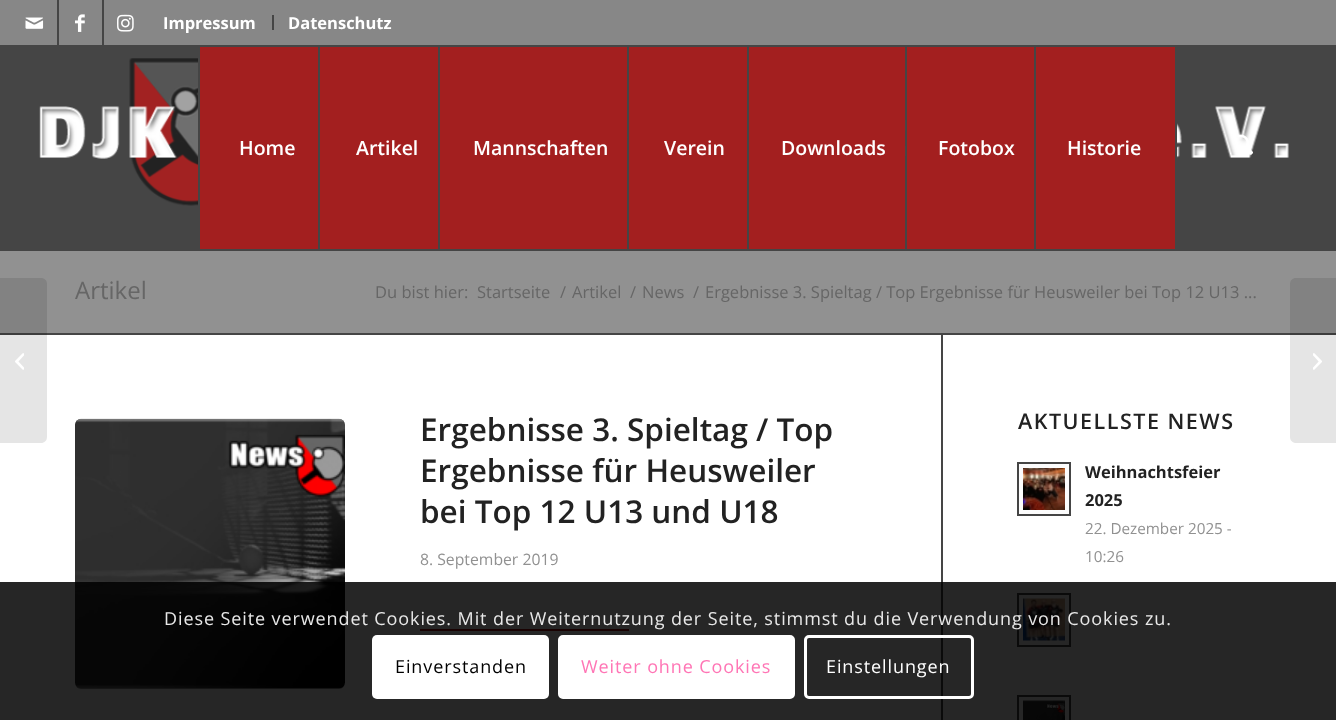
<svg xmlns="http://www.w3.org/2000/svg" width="1336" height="720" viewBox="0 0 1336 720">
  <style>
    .t1 { font: bold 16.5px Open Sans; fill: #fff; }
    .t2 { font: 600 19.5px Open Sans; fill: #fff; }
    .t3 { font: 24px Open Sans; fill: #666; }
    .t4 { font: 16.5px Open Sans; fill: #666; }
    .t5 { font: 600 31.5px Open Sans; fill: #222; }
    .t6 { font: 15.75px Open Sans; fill: #919191; }
    .t7 { font: 600 21.5px Open Sans; letter-spacing: 1.5px; fill: #222; }
    .t8 { font: bold 16.5px Open Sans; fill: #222; }
    .t9 { font: 15.25px Open Sans; fill: #919191; }
    .t10 { font: 18px Open Sans; letter-spacing: 0.9px; fill: #e8e8e8; }
    .t11 { font: 18px Open Sans; letter-spacing: 0.9px; fill: #000; }
    .t12 { font: 18px Open Sans; letter-spacing: 0.9px; fill: #ff75b5; }
    .t13 { font: 18px Open Sans; letter-spacing: 0.9px; fill: #fff; }
  </style>
  <rect width="100%" height="100%" fill="#919191"/>
  <rect x="0" y="0" width="1336" height="45" fill="#878787"/>
  <rect x="57" y="0" width="2" height="45" fill="#454545"/>
  <image x="25" y="17" width="19" height="12" href="images/1.png"/>
  <rect x="102" y="0" width="2" height="45" fill="#454545"/>
  <image x="75" y="14" width="10" height="18" href="images/2.png"/>
  <image x="117" y="14" width="17" height="18" href="images/3.png"/>
  <rect x="272" y="15" width="2" height="15" fill="#454545"/>
  <text x="163" y="29" class="t1">Impressum</text>
  <text x="288" y="29" class="t1">Datenschutz</text>
  <rect x="0" y="45" width="1336" height="206" fill="#454545"/>
  <image x="39" y="58" width="1250" height="148" href="images/4.png"/>
  <rect x="200" y="47" width="118" height="202" fill="#a31f1f"/>
  <rect x="198" y="58" width="2" height="148" fill="#454545"/>
  <text x="239" y="155" class="t2">Home</text>
  <rect x="320" y="47" width="118" height="202" fill="#a31f1f"/>
  <rect x="318" y="119" width="2" height="40" fill="#454545"/>
  <text x="356" y="155" class="t2">Artikel</text>
  <rect x="440" y="47" width="187" height="202" fill="#a31f1f"/>
  <rect x="438" y="123" width="2" height="35" fill="#454545"/>
  <text x="473" y="155" class="t2">Mannschaften</text>
  <rect x="629" y="47" width="118" height="202" fill="#a31f1f"/>
  <rect x="627" y="119" width="2" height="18" fill="#454545"/>
  <text x="664" y="155" class="t2">Verein</text>
  <rect x="749" y="47" width="156" height="202" fill="#a31f1f"/>
  <text x="781" y="155" class="t2">Downloads</text>
  <rect x="907" y="47" width="127" height="202" fill="#a31f1f"/>
  <text x="938" y="155" class="t2">Fotobox</text>
  <rect x="1036" y="47" width="139" height="202" fill="#a31f1f"/>
  <rect x="1034" y="119" width="2" height="39" fill="#454545"/>
  <text x="1067" y="155" class="t2">Historie</text>
  <rect x="1175" y="121" width="2" height="37" fill="#454545"/>
  <image x="1239" y="134" width="14" height="21" href="images/5.png"/>
  <rect x="0" y="335" width="1336" height="385" fill="#fff"/>
  <rect x="0" y="333" width="1336" height="2" fill="#454545"/>
  <path d="M0 278H41C44.5 278 47 280.5 47 284V437C47 440.5 44.5 443 41 443H0Z" fill="#0000001a"/>
  <image x="15" y="353" width="9" height="17" href="images/6.png"/>
  <text x="75" y="299" class="t3">Artikel</text>
  <text x="375" y="298" class="t4">Du bist hier:</text>
  <text x="477" y="298" class="t4">Startseite</text>
  <text x="560" y="298" class="t4">/</text>
  <text x="572" y="298" class="t4">Artikel</text>
  <text x="630" y="298" class="t4">/</text>
  <text x="642" y="298" class="t4">News</text>
  <text x="693" y="298" class="t4">/</text>
  <text x="705" y="298" class="t4">Ergebnisse 3. Spieltag / Top Ergebnisse für Heusweiler bei Top 12 U13 ...</text>
  <rect x="941" y="335" width="2" height="385" fill="#454545"/>
  <rect x="75" y="419" width="270" height="270" rx="6" fill="#919191"/>
  <image x="75" y="418" width="270" height="271" href="images/7.png"/>
  <text x="420" y="441" class="t5">Ergebnisse 3. Spieltag / Top</text>
  <text x="420" y="482" class="t5">Ergebnisse für Heusweiler</text>
  <text x="420" y="523" class="t5">bei Top 12 U13 und U18</text>
  <text x="420" y="565" class="t6">8. September 2019</text>
  <rect x="420" y="629" width="209" height="2" fill="#a81010"/>
  <text x="1018" y="429" class="t7">AKTUELLSTE NEWS</text>
  <rect x="1018" y="463" width="52" height="52" fill="#fcfcfc" stroke="#454545" stroke-width="2"/>
  <image x="1023" y="468" width="42" height="42" href="images/8.png"/>
  <text x="1085" y="478" class="t8">Weihnachtsfeier</text>
  <text x="1085" y="506" class="t8">2025</text>
  <text x="1085" y="534" class="t9">22. Dezember 2025 -</text>
  <text x="1085" y="562" class="t9">10:26</text>
  <rect x="1018" y="594" width="52" height="52" fill="#fcfcfc" stroke="#454545" stroke-width="2"/>
  <image x="1023" y="598" width="42" height="43" href="images/9.png"/>
  <rect x="1018" y="696" width="52" height="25" fill="#fcfcfc" stroke="#454545" stroke-width="2"/>
  <image x="1023" y="700" width="42" height="20" href="images/10.png"/>
  <path d="M1296 278H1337V443H1296C1292.5 443 1290 440.5 1290 437V284C1290 280.5 1292.5 278 1296 278Z" fill="#0000001a"/>
  <image x="1313" y="353" width="9" height="17" href="images/11.png"/>
  <rect x="0" y="582" width="1336" height="138" fill="#000000d9"/>
  <text x="164" y="625" class="t10">Diese Seite verwendet Cookies. Mit der Weiternutzung der Seite, stimmst du die Verwendung von Cookies zu.</text>
  <rect x="372" y="635" width="177" height="64" rx="5" fill="#fff"/>
  <text x="395" y="673" class="t11">Einverstanden</text>
  <rect x="559.5" y="636.5" width="234" height="61" rx="3.5" fill="#fff" stroke="#fff" stroke-width="3"/>
  <text x="581" y="673" class="t12">Weiter ohne Cookies</text>
  <rect x="805.5" y="636.5" width="167" height="61" rx="3.5" fill="none" stroke="#fff" stroke-width="3"/>
  <text x="826" y="673" class="t13">Einstellungen</text>
</svg>
